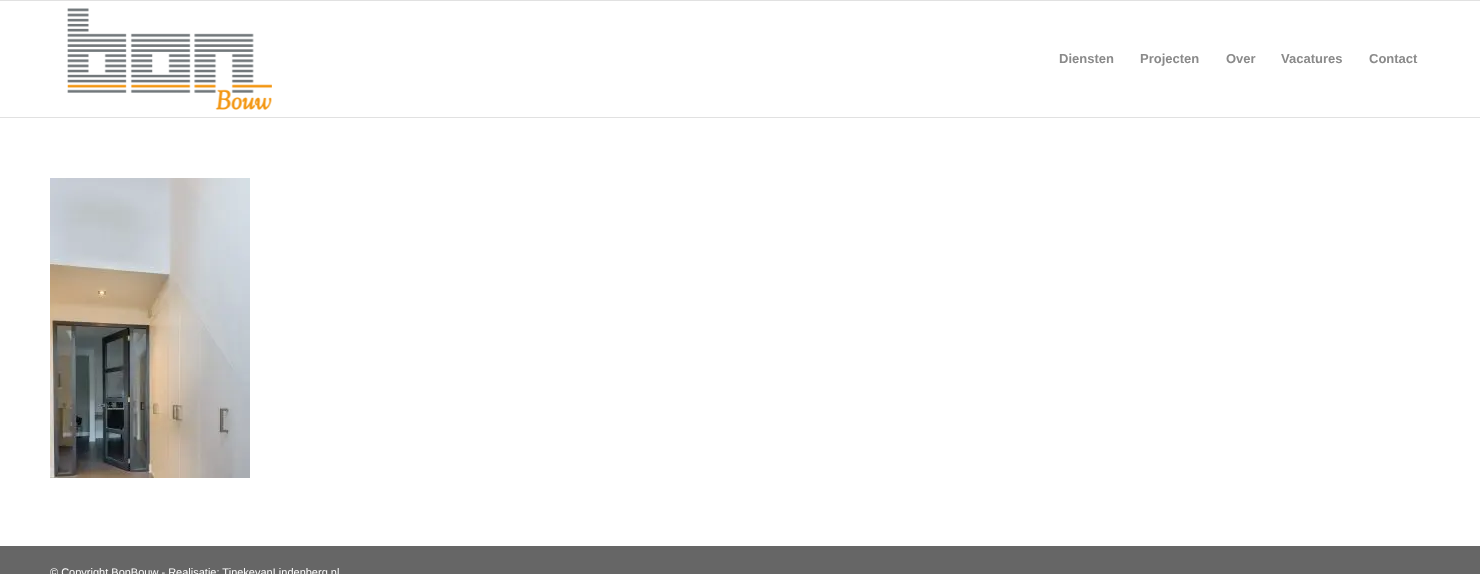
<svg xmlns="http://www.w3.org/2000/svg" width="1480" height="574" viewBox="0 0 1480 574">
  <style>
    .t1 { font: bold 13px Liberation Sans; fill: #8a8a8a; }
    .t2 { font: 11px Liberation Sans; fill: #fff; }
  </style>
  <rect width="100%" height="100%" fill="#fff"/>
  <rect x="0" y="0" width="1480" height="1" fill="#e1e1e1"/>
  <rect x="0" y="117" width="1480" height="1" fill="#e1e1e1"/>
  <image x="67" y="8" width="205" height="102" href="images/1.png"/>
  <text x="1059" y="63" class="t1">Diensten</text>
  <text x="1140" y="63" class="t1">Projecten</text>
  <text x="1226" y="63" class="t1">Over</text>
  <text x="1281" y="63" class="t1">Vacatures</text>
  <text x="1369" y="63" class="t1">Contact</text>
  <image x="50" y="178" width="200" height="300" href="images/2.png"/>
  <rect x="0" y="546" width="1480" height="28" fill="#666"/>
  <text x="50" y="576" class="t2">© Copyright BonBouw - Realisatie: TinekevanLindenberg.nl</text>
</svg>
